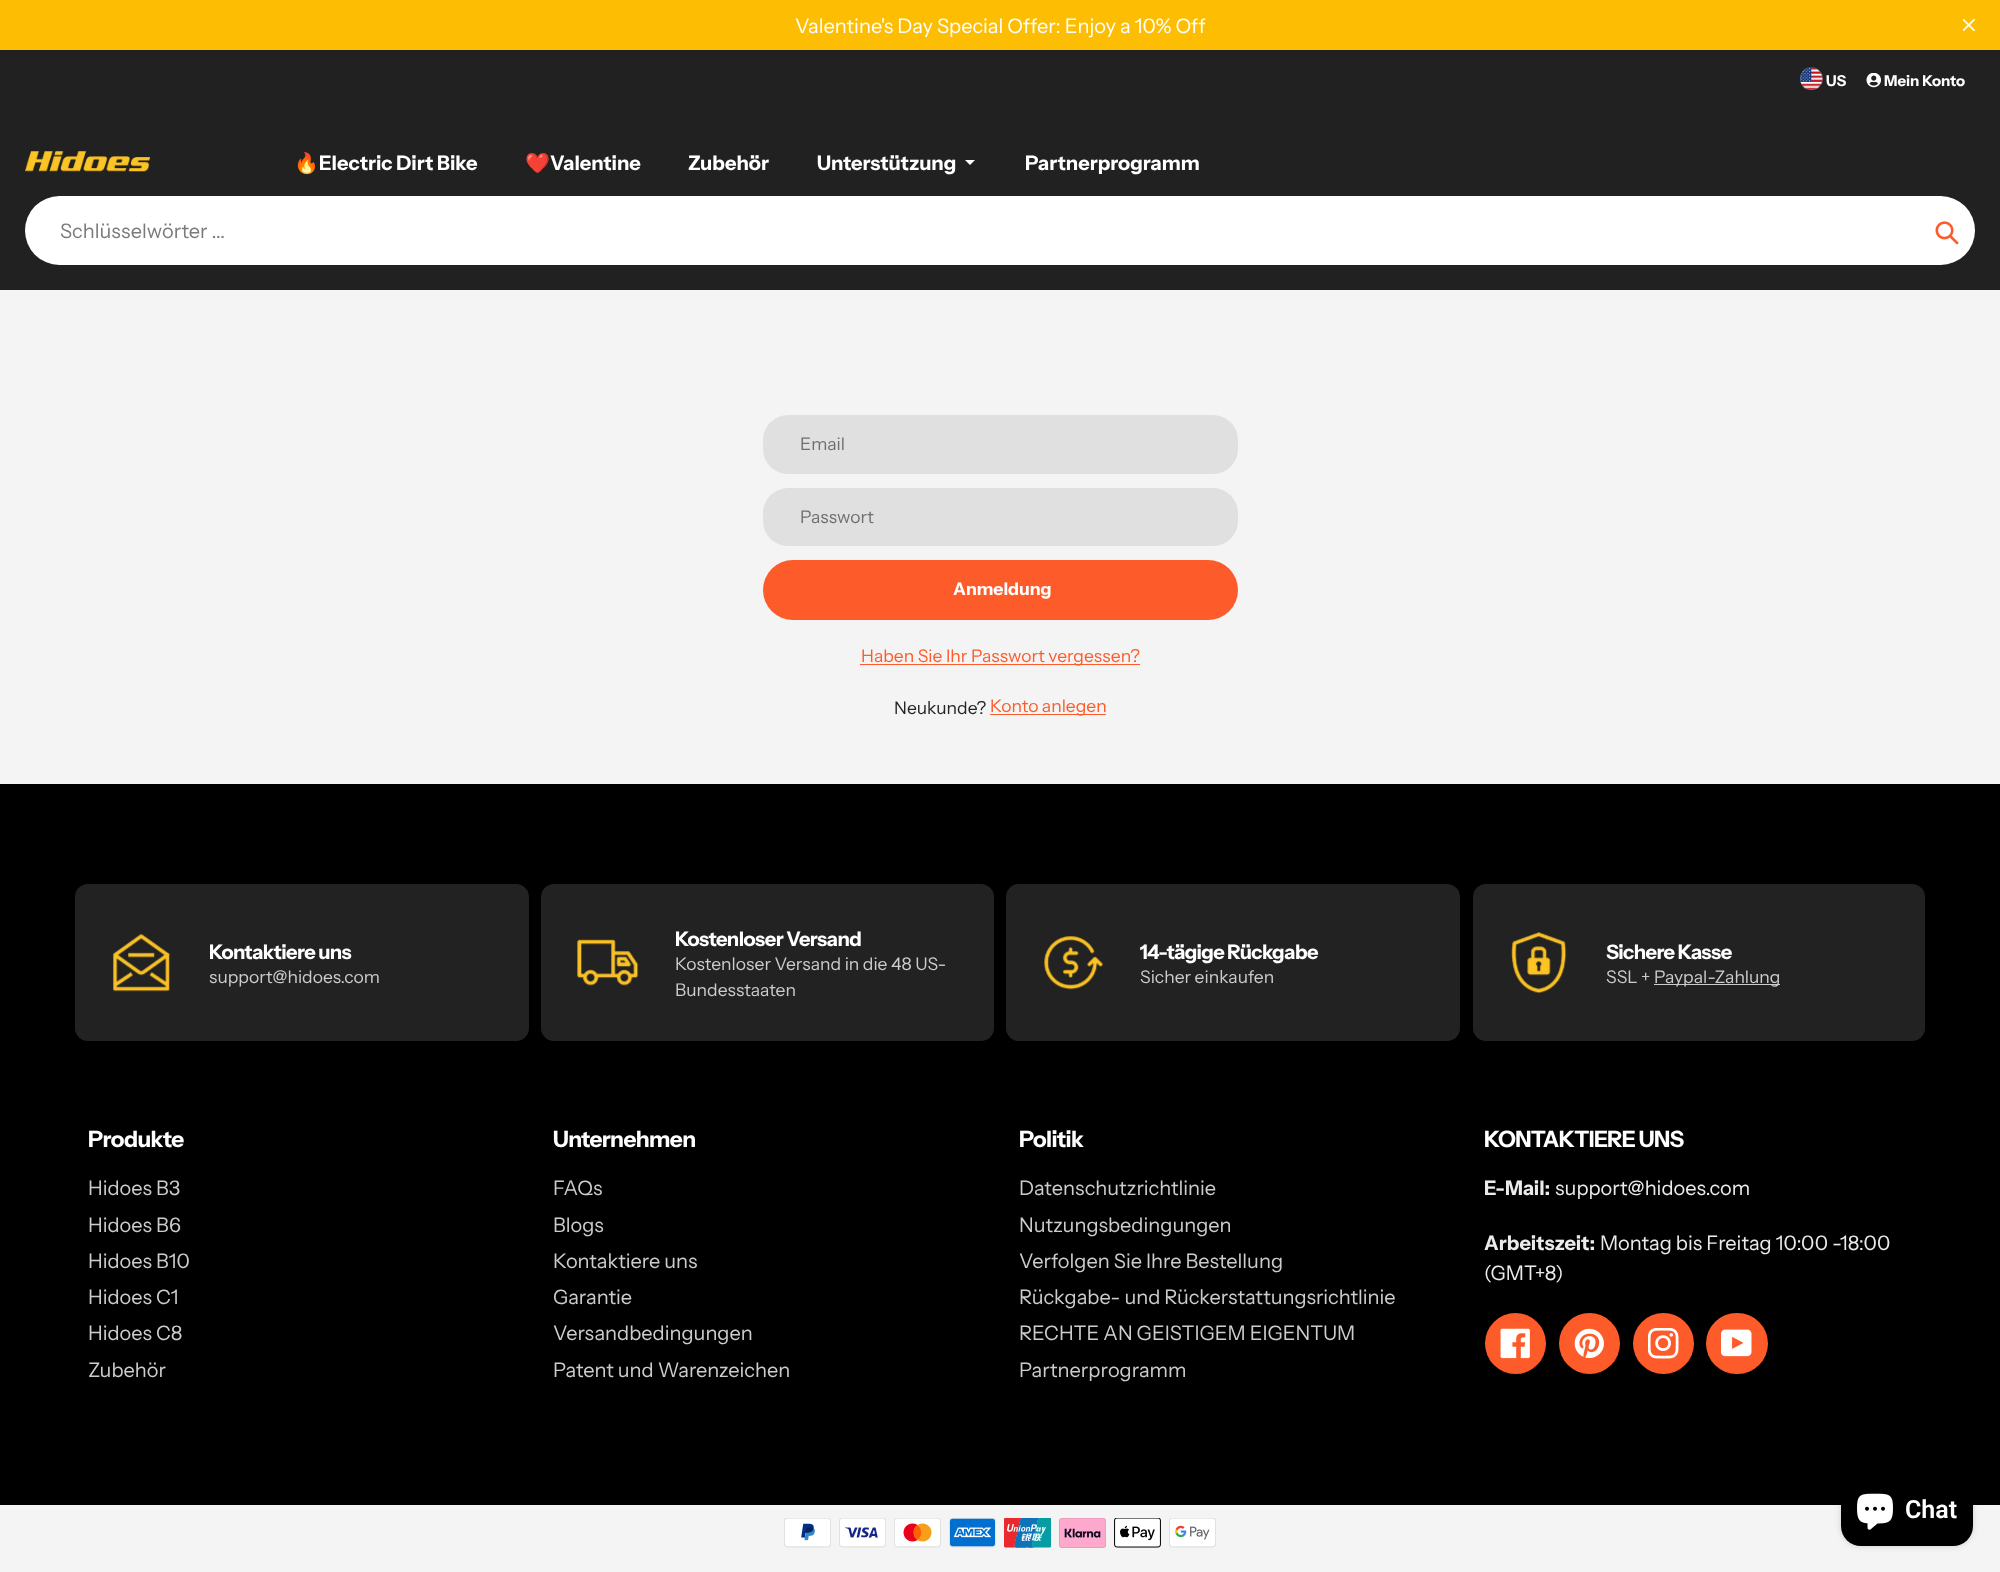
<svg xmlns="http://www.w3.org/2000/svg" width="2000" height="1572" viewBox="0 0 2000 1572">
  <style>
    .t1 { font: 20px Instrument Sans; fill: #fff; }
    .t2 { font: bold 15px Instrument Sans; fill: #fff; }
    .t3 { font: bold 20px Noto Color Emoji; fill: #fff; }
    .t4 { font: bold 20px Instrument Sans; fill: #fff; }
    .t5 { font: 20px Instrument Sans; fill: #7b7b7b; }
    .t6 { font: 17.5px Instrument Sans; fill: #6f6f6f; }
    .t7 { font: bold 17.5px Instrument Sans; fill: #fff; }
    .t8 { font: 17.5px Instrument Sans; fill: #fd5b2a; }
    .t9 { font: 17.5px Instrument Sans; fill: #232323; }
    .t10 { font: bold 20px Instrument Sans; letter-spacing: -0.6px; fill: #fff; }
    .t11 { font: 17.5px Instrument Sans; fill: #ccc; }
    .t12 { font: bold 22.5px Instrument Sans; letter-spacing: -0.6px; fill: #fff; }
    .t13 { font: 20px Instrument Sans; fill: #ccc; }
    .t14 { font: bold 20px Instrument Sans; fill: #ebebeb; }
    .t15 { font: 20px Instrument Sans; fill: #ebebeb; }
    .t16 { font: 600 25px Roboto; fill: #fff; }
  </style>
  <rect width="100%" height="100%" fill="#f4f4f4"/>
  <rect x="0" y="0" width="2000" height="50" fill="#fdbd03"/>
  <text x="795" y="33" class="t1">Valentine's Day Special Offer: Enjoy a 10% Off</text>
  <image x="1963" y="19" width="12" height="12" href="images/1.png"/>
  <rect x="0" y="50" width="2000" height="240" fill="#212121"/>
  <image x="1800" y="67" width="23" height="23" href="images/2.png"/>
  <text x="1826" y="86" class="t2">US</text>
  <image x="1866" y="73" width="15" height="15" href="images/3.png"/>
  <text x="1884" y="86" class="t2">Mein Konto</text>
  <image x="25" y="151" width="125" height="21" href="images/4.png"/>
  <text x="294" y="170" class="t3">🔥</text>
  <text x="319" y="170" class="t4">Electric Dirt Bike</text>
  <text x="525" y="170" class="t3">❤️</text>
  <text x="550" y="170" class="t4">Valentine</text>
  <text x="688" y="170" class="t4">Zubehör</text>
  <text x="817" y="170" class="t4">Unterstützung</text>
  <path d="M975 160L970 165L965 160" fill="#fff"/>
  <text x="1025" y="170" class="t4">Partnerprogramm</text>
  <rect x="25" y="196" width="1950" height="69" rx="34.5" fill="#fff"/>
  <text x="60" y="238" class="t5">Schlüsselwörter ...</text>
  <image x="1935" y="221" width="24" height="24" href="images/5.png"/>
  <rect x="763" y="415" width="475" height="59" rx="25" fill="#e0e0e0"/>
  <text x="800" y="450" class="t6">Email</text>
  <rect x="763" y="488" width="475" height="58" rx="25" fill="#e0e0e0"/>
  <text x="800" y="523" class="t6">Passwort</text>
  <rect x="763" y="560" width="475" height="60" rx="30" fill="#fd5b2a"/>
  <text x="953" y="595" class="t7">Anmeldung</text>
  <rect x="860" y="664" width="280" height="1" fill="#fd5b2a"/>
  <text x="861" y="662" class="t8">Haben Sie Ihr Passwort vergessen?</text>
  <text x="894" y="714" class="t9">Neukunde?</text>
  <rect x="990" y="714" width="116" height="1" fill="#fd5b2a"/>
  <text x="990" y="712" class="t8">Konto anlegen</text>
  <rect x="0" y="784" width="2000" height="721" fill="#000"/>
  <rect x="75" y="884" width="454" height="157" rx="13" fill="#222"/>
  <image x="113" y="934" width="58" height="58" href="images/6.png"/>
  <text x="209" y="959" class="t10">Kontaktiere uns</text>
  <text x="209" y="983" class="t11">support@hidoes.com</text>
  <rect x="541" y="884" width="453" height="157" rx="13" fill="#222"/>
  <image x="577" y="939" width="62" height="47" href="images/7.png"/>
  <text x="675" y="946" class="t10">Kostenloser Versand</text>
  <text x="675" y="970" class="t11">Kostenloser Versand in die 48 US-</text>
  <text x="675" y="996" class="t11">Bundesstaaten</text>
  <rect x="1006" y="884" width="454" height="157" rx="13" fill="#222"/>
  <image x="1044" y="936" width="60" height="54" href="images/8.png"/>
  <text x="1140" y="959" class="t10">14-tägige Rückgabe</text>
  <text x="1140" y="983" class="t11">Sicher einkaufen</text>
  <rect x="1473" y="884" width="452" height="157" rx="13" fill="#222"/>
  <image x="1511" y="932" width="56" height="61" href="images/9.png"/>
  <text x="1606" y="959" class="t10">Sichere Kasse</text>
  <text x="1606" y="983" class="t11">SSL +</text>
  <rect x="1654" y="984" width="126" height="1" fill="#ccc"/>
  <text x="1654" y="983" class="t11">Paypal-Zahlung</text>
  <text x="88" y="1147" class="t12">Produkte</text>
  <text x="88" y="1195" class="t13">Hidoes B3</text>
  <text x="88" y="1232" class="t13">Hidoes B6</text>
  <text x="88" y="1268" class="t13">Hidoes B10</text>
  <text x="88" y="1304" class="t13">Hidoes C1</text>
  <text x="88" y="1340" class="t13">Hidoes C8</text>
  <text x="88" y="1377" class="t13">Zubehör</text>
  <text x="553" y="1147" class="t12">Unternehmen</text>
  <text x="553" y="1195" class="t13">FAQs</text>
  <text x="553" y="1232" class="t13">Blogs</text>
  <text x="553" y="1268" class="t13">Kontaktiere uns</text>
  <text x="553" y="1304" class="t13">Garantie</text>
  <text x="553" y="1340" class="t13">Versandbedingungen</text>
  <text x="553" y="1377" class="t13">Patent und Warenzeichen</text>
  <text x="1019" y="1147" class="t12">Politik</text>
  <text x="1019" y="1195" class="t13">Datenschutzrichtlinie</text>
  <text x="1019" y="1232" class="t13">Nutzungsbedingungen</text>
  <text x="1019" y="1268" class="t13">Verfolgen Sie Ihre Bestellung</text>
  <text x="1019" y="1304" class="t13">Rückgabe- und Rückerstattungsrichtlinie</text>
  <text x="1019" y="1340" class="t13">RECHTE AN GEISTIGEM EIGENTUM</text>
  <text x="1019" y="1377" class="t13">Partnerprogramm</text>
  <text x="1484" y="1147" class="t12">KONTAKTIERE UNS</text>
  <text x="1484" y="1195" class="t14">E-Mail:</text>
  <text x="1555" y="1195" class="t15">support@hidoes.com</text>
  <text x="1484" y="1250" class="t14">Arbeitszeit:</text>
  <text x="1600" y="1250" class="t15">Montag bis Freitag 10:00 -18:00</text>
  <text x="1484" y="1280" class="t15">(GMT+8)</text>
  <circle cx="1515.5" cy="1343.5" r="30.5" fill="#fd5b2a"/>
  <image x="1500" y="1328" width="30" height="31" href="images/10.png"/>
  <circle cx="1589.5" cy="1343.5" r="30.5" fill="#fd5b2a"/>
  <image x="1574" y="1328" width="30" height="30" href="images/11.png"/>
  <circle cx="1663.5" cy="1343.5" r="30.5" fill="#fd5b2a"/>
  <image x="1648" y="1328" width="31" height="31" href="images/12.png"/>
  <rect x="1706" y="1313" width="62" height="61" rx="30.5" fill="#fd5b2a"/>
  <image x="1721" y="1329" width="31" height="28" href="images/13.png"/>
  <image x="784" y="1518" width="47" height="30" href="images/14.png"/>
  <image x="839" y="1518" width="47" height="30" href="images/15.png"/>
  <image x="894" y="1518" width="47" height="30" href="images/16.png"/>
  <image x="949" y="1518" width="47" height="30" href="images/17.png"/>
  <image x="1004" y="1518" width="47" height="30" href="images/18.png"/>
  <image x="1059" y="1518" width="47" height="30" href="images/19.png"/>
  <image x="1114" y="1518" width="47" height="30" href="images/20.png"/>
  <image x="1169" y="1518" width="47" height="30" href="images/21.png"/>
  <rect x="1841" y="1471" width="132" height="75" rx="20" fill="#00000026" filter="blur(3px)"/>
  <rect x="1841" y="1471" width="132" height="75" rx="20" fill="#000"/>
  <image x="1857" y="1493" width="36" height="37" href="images/22.png"/>
  <text x="1905" y="1518" class="t16">Chat</text>
</svg>
